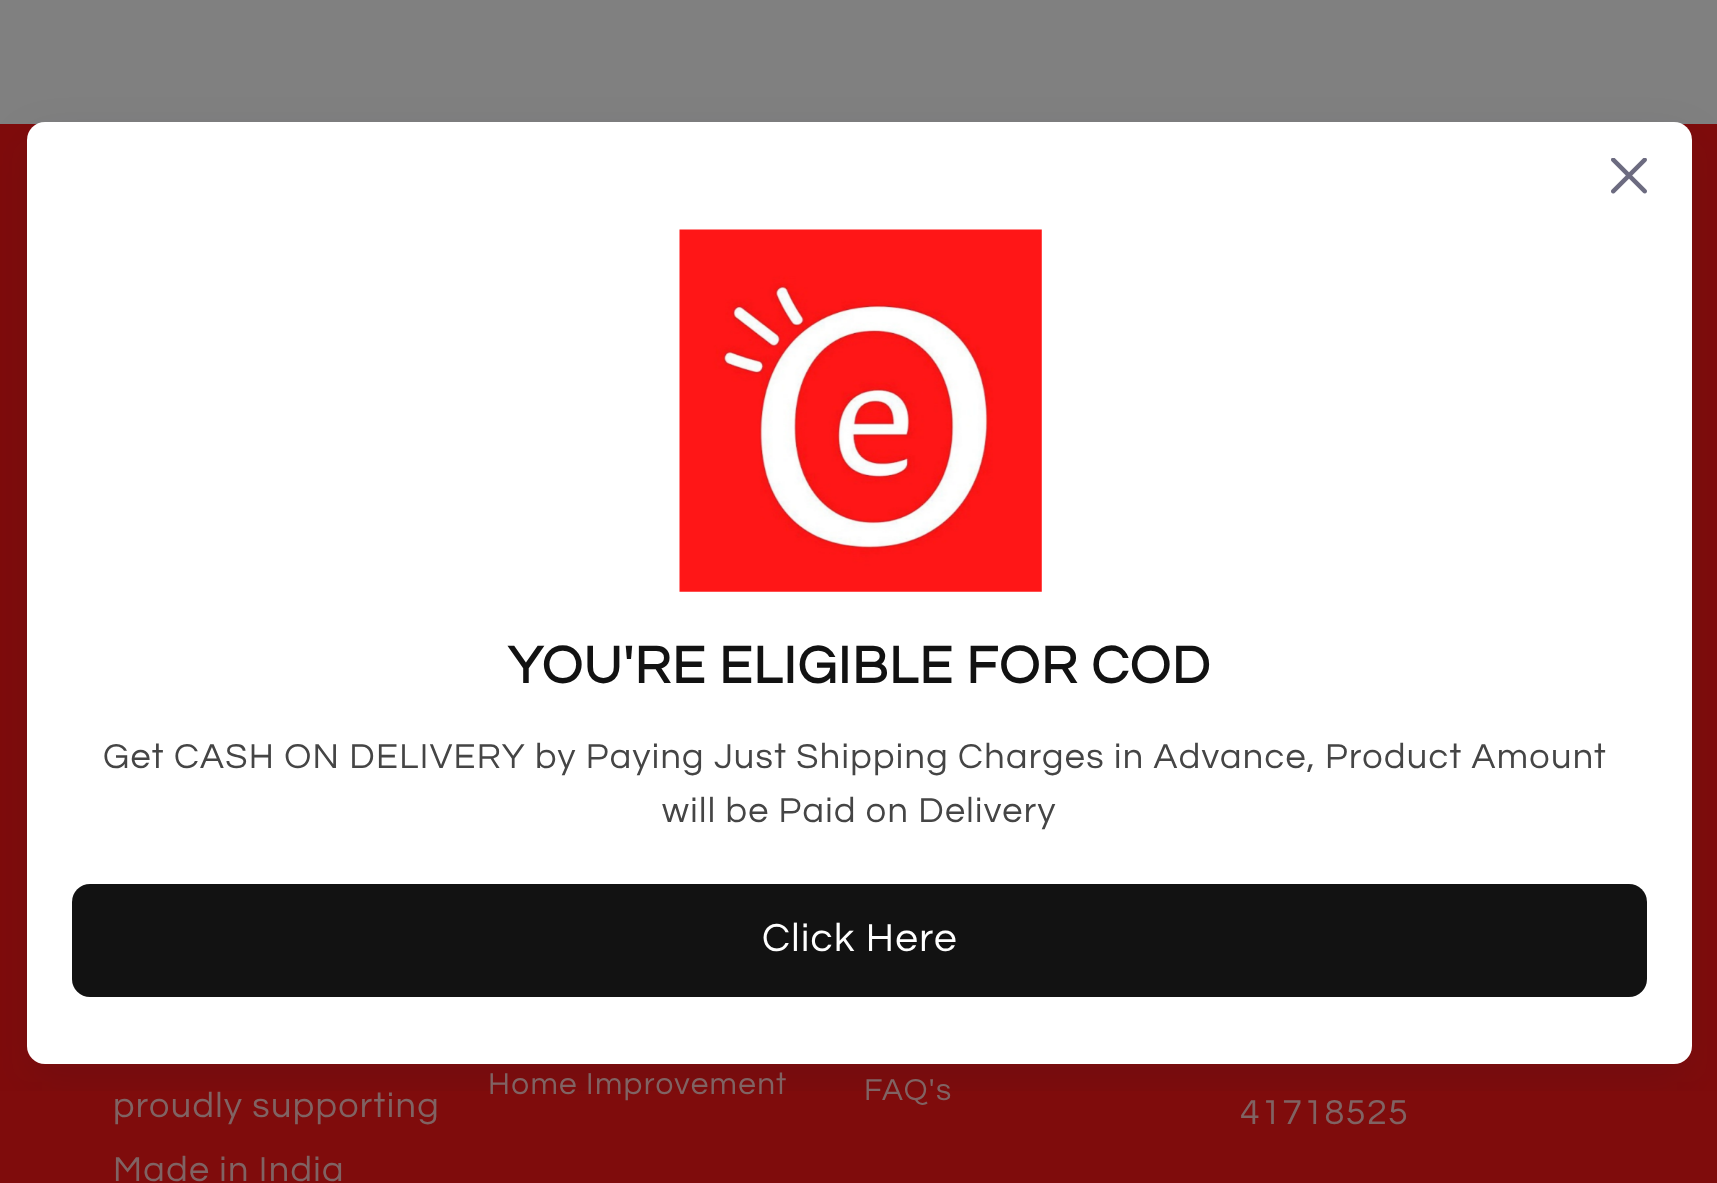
<svg xmlns="http://www.w3.org/2000/svg" width="1717" height="1183" viewBox="0 0 1717 1183">
  <style>
    .t1 { font: bold 54px Questrial; letter-spacing: 1.35px; fill: #121212; }
    .t2 { font: 36px Questrial; letter-spacing: 1.35px; fill: #454545; }
    .t3 { font: 40.5px Questrial; letter-spacing: 1.35px; fill: #fff; }
    .t4 { font: 36px Questrial; letter-spacing: 1.35px; fill: #806363; }
    .t5 { font: 31.5px Questrial; letter-spacing: 1.35px; fill: #806363; }
  </style>
  <defs>
    <clipPath id="clip1"><rect x="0" y="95" width="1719" height="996"/></clipPath>
  </defs>
  <rect width="100%" height="100%" fill="#808080"/>
  <rect x="0" y="124" width="1717" height="1059" fill="#7f0c0c"/>
  <g clip-path="url(#clip1)">
    <rect x="27" y="140" width="1665" height="942" rx="18" fill="#1211271a" filter="blur(22.5px)"/>
  </g>
  <rect x="27" y="122" width="1665" height="942" rx="18" fill="#fff"/>
  <image x="1611" y="158" width="36" height="36" href="images/1.png"/>
  <image x="679" y="229" width="363" height="363" href="images/2.png"/>
  <text x="508" y="683" class="t1">YOU'RE ELIGIBLE FOR COD</text>
  <text x="103" y="768" class="t2">Get CASH ON DELIVERY by Paying Just Shipping Charges in Advance, Product Amount</text>
  <text x="662" y="822" class="t2">will be Paid on Delivery</text>
  <rect x="72" y="884" width="1575" height="113" rx="18" fill="#121212"/>
  <text x="762" y="951" class="t3">Click Here</text>
  <text x="113" y="1117" class="t4">proudly supporting</text>
  <text x="113" y="1181" class="t4">Made in India</text>
  <text x="488" y="1094" class="t5">Home Improvement</text>
  <text x="864" y="1100" class="t5">FAQ's</text>
  <text x="1240" y="1124" class="t4">41718525</text>
</svg>
